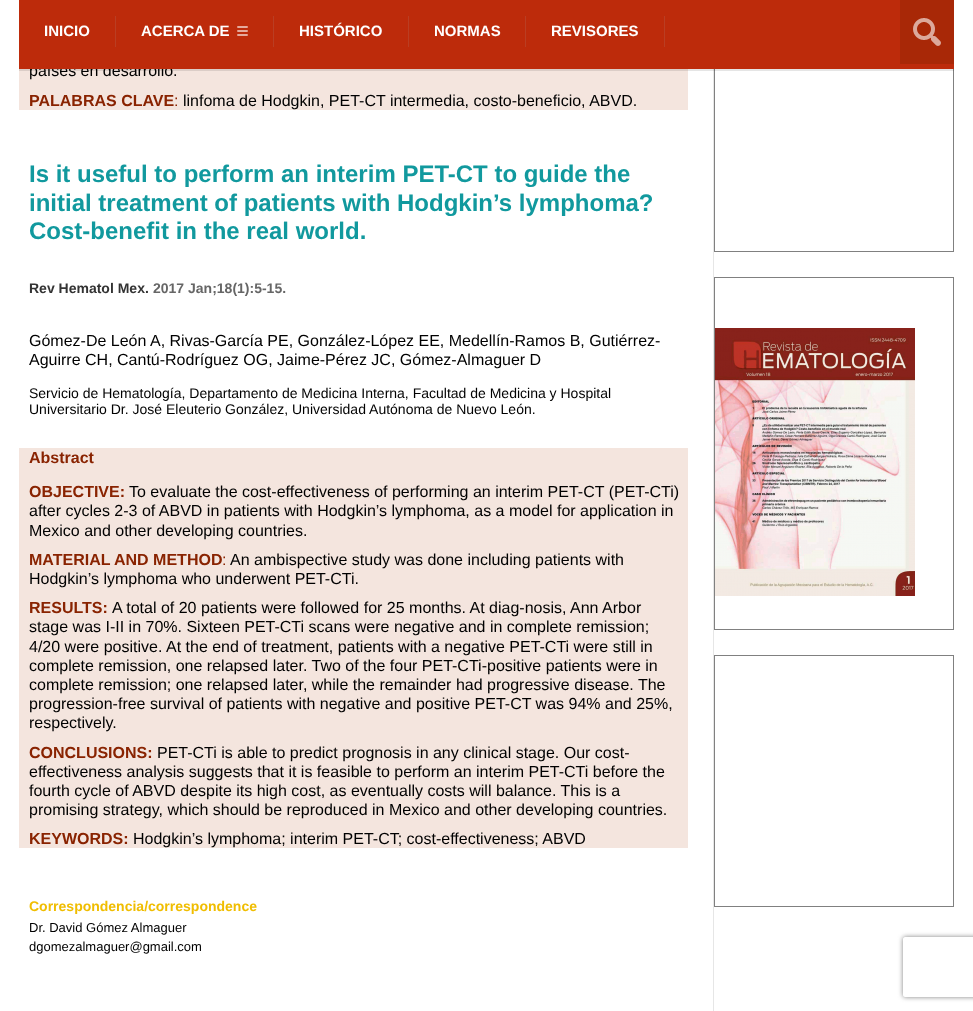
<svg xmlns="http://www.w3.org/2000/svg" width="973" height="1011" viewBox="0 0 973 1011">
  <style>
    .t1 { font: 16px Liberation Sans; fill: #000; }
    .t2 { font: bold 15px Liberation Sans; fill: #fff; }
    .t3 { font: bold 16px Liberation Sans; fill: #892301; }
    .t4 { font: 16px Liberation Sans; fill: #892301; }
    .t5 { font: bold 24px Liberation Sans; fill: #11999e; }
    .t6 { font: bold 14px Liberation Sans; fill: #333; }
    .t7 { font: bold 14px Liberation Sans; fill: #666; }
    .t8 { font: 14px Liberation Sans; fill: #000; }
    .t9 { font: bold 14px Liberation Sans; fill: #f0bd00; }
    .t10 { font: 13px Liberation Sans; fill: #000; }
  </style>
  <defs>
    <clipPath id="clip1"><path d="M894 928H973V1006H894ZM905 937H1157C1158 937 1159 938 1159 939V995C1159 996 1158 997 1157 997H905C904 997 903 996 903 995V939C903 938 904 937 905 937Z" clip-rule="evenodd"/></clipPath>
  </defs>
  <rect width="100%" height="100%" fill="#fff"/>
  <rect x="713" y="69" width="1" height="942" fill="#e6e6e6"/>
  <rect x="19" y="69" width="669" height="41" fill="#f4e5de"/>
  <rect x="714.5" y="0.5" width="239" height="251" fill="none" stroke="#808080"/>
  <rect x="19" y="2" width="935" height="69" fill="#0000001a" filter="blur(0.5px)"/>
  <text x="29" y="76" class="t1">países en desarrollo.</text>
  <rect x="19" y="0" width="935" height="69" fill="#bd2b0b"/>
  <rect x="115" y="16" width="1" height="31" fill="#ba3e23"/>
  <text x="44" y="36" class="t2">INICIO</text>
  <rect x="273" y="16" width="1" height="31" fill="#ba3e23"/>
  <text x="141" y="36" class="t2">ACERCA DE</text>
  <image x="237" y="26" width="11" height="10" href="images/1.png"/>
  <rect x="408" y="16" width="1" height="31" fill="#ba3e23"/>
  <text x="299" y="36" class="t2">HISTÓRICO</text>
  <rect x="525" y="16" width="1" height="31" fill="#ba3e23"/>
  <text x="434" y="36" class="t2">NORMAS</text>
  <rect x="664" y="16" width="1" height="31" fill="#ba3e23"/>
  <text x="551" y="36" class="t2">REVISORES</text>
  <rect x="900" y="0" width="54" height="64" fill="#a82807"/>
  <image x="913" y="18" width="28" height="28" href="images/2.png"/>
  <text x="29" y="106" class="t3">PALABRAS CLAVE</text>
  <text x="174" y="106" class="t4">:</text>
  <text x="183" y="106" class="t1">linfoma de Hodgkin, PET-CT intermedia, costo-beneficio, ABVD.</text>
  <text x="29" y="182" class="t5">Is it useful to perform an interim PET-CT to guide the</text>
  <text x="29" y="211" class="t5">initial treatment of patients with Hodgkin’s lymphoma?</text>
  <text x="29" y="239" class="t5">Cost-benefit in the real world.</text>
  <text x="29" y="293" class="t6">Rev Hematol Mex.</text>
  <text x="153" y="293" class="t7">2017 Jan;18(1):5-15.</text>
  <text x="29" y="346" class="t1">Gómez-De León A, Rivas-García PE, González-López EE, Medellín-Ramos B, Gutiérrez-</text>
  <text x="29" y="365" class="t1">Aguirre CH, Cantú-Rodríguez OG, Jaime-Pérez JC, Gómez-Almaguer D</text>
  <text x="29" y="398" class="t8">Servicio de Hematología, Departamento de Medicina Interna, Facultad de Medicina y Hospital</text>
  <text x="29" y="414" class="t8">Universitario Dr. José Eleuterio González, Universidad Autónoma de Nuevo León.</text>
  <rect x="19" y="448" width="669" height="400" fill="#f4e5de"/>
  <text x="29" y="463" class="t3">Abstract</text>
  <text x="29" y="497" class="t3">OBJECTIVE:</text>
  <text x="129" y="497" class="t1">To evaluate the cost-effectiveness of performing an interim PET-CT (PET-CTi)</text>
  <text x="29" y="516" class="t1">after cycles 2-3 of ABVD in patients with Hodgkin’s lymphoma, as a model for application in</text>
  <text x="29" y="536" class="t1">Mexico and other developing countries.</text>
  <text x="29" y="565" class="t3">MATERIAL</text>
  <text x="114" y="565" class="t3">AND METHOD</text>
  <text x="222" y="565" class="t4">:</text>
  <text x="230" y="565" class="t1">An ambispective study was done including patients with</text>
  <text x="29" y="584" class="t1">Hodgkin’s lymphoma who underwent PET-CTi.</text>
  <text x="29" y="613" class="t3">RESULTS:</text>
  <text x="112" y="613" class="t1">A total of 20 patients were followed for 25 months. At diag-nosis, Ann Arbor</text>
  <text x="29" y="632" class="t1">stage was I-II in 70%. Sixteen PET-CTi scans were negative and in complete remission;</text>
  <text x="29" y="652" class="t1">4/20 were positive. At the end of treatment, patients with a negative PET-CTi were still in</text>
  <text x="29" y="671" class="t1">complete remission, one relapsed later. Two of the four PET-CTi-positive patients were in</text>
  <text x="29" y="690" class="t1">complete remission; one relapsed later, while the remainder had progressive disease. The</text>
  <text x="29" y="709" class="t1">progression-free survival of patients with negative and positive PET-CT was 94% and 25%,</text>
  <text x="29" y="728" class="t1">respectively.</text>
  <text x="29" y="758" class="t3">CONCLUSIONS:</text>
  <text x="157" y="758" class="t1">PET-CTi is able to predict prognosis in any clinical stage. Our cost-</text>
  <text x="29" y="777" class="t1">effectiveness analysis suggests that it is feasible to perform an interim PET-CTi before the</text>
  <text x="29" y="796" class="t1">fourth cycle of ABVD despite its high cost, as eventually costs will balance. This is a</text>
  <text x="29" y="815" class="t1">promising strategy, which should be reproduced in Mexico and other developing countries.</text>
  <text x="29" y="844" class="t3">KEYWORDS:</text>
  <text x="133" y="844" class="t1">Hodgkin’s lymphoma; interim PET-CT; cost-effectiveness; ABVD</text>
  <text x="29" y="911" class="t9">Correspondencia/correspondence</text>
  <text x="29" y="932" class="t10">Dr. David Gómez Almaguer</text>
  <text x="29" y="951" class="t10">dgomezalmaguer@gmail.com</text>
  <rect x="714.5" y="277.5" width="239" height="352" fill="none" stroke="#808080"/>
  <image x="715" y="328" width="200" height="268" href="images/3.png"/>
  <rect x="714.5" y="655.5" width="239" height="251" fill="none" stroke="#808080"/>
  <g clip-path="url(#clip1)">
    <rect x="903" y="937" width="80" height="60" rx="2" fill="#808080" filter="blur(2.5px)"/>
  </g>
</svg>
